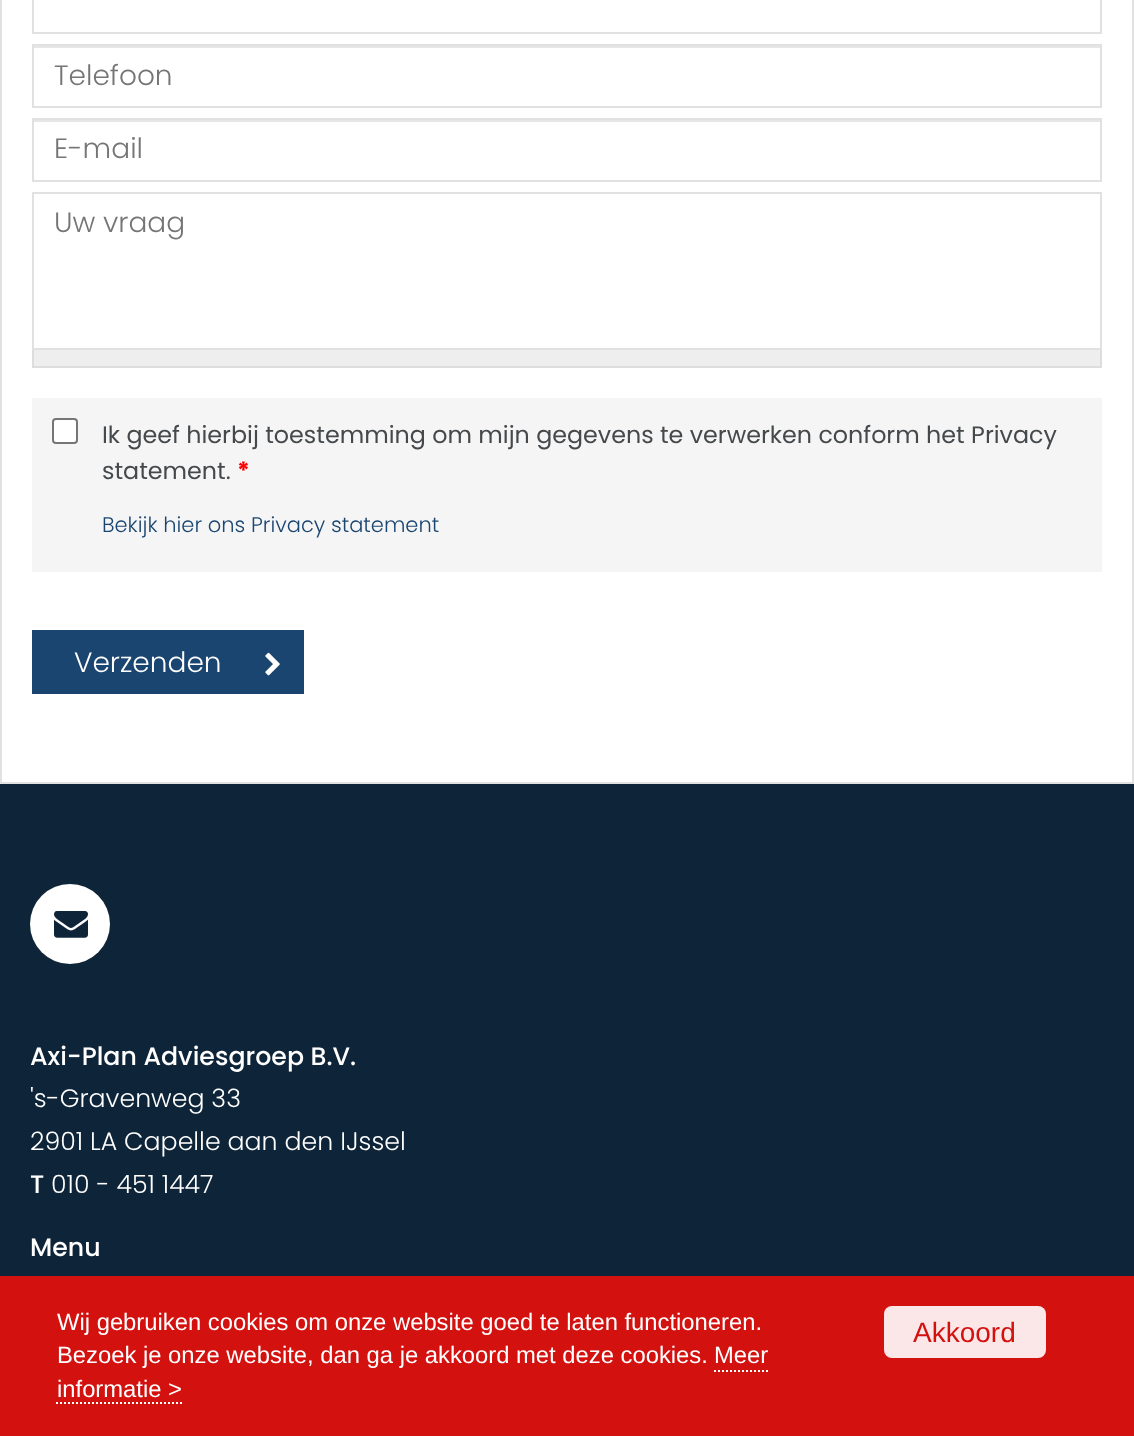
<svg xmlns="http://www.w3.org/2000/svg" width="1134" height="1436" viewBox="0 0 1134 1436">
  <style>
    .t1 { font: 300 28px Poppins; fill: #757575; }
    .t2 { font: 23.8px Poppins; fill: #46494c; }
    .t3 { font: bold 23.8px Poppins; fill: #f00; }
    .t4 { font: 300 21px Poppins; fill: #194570; }
    .t5 { font: 300 28px Poppins; fill: #fff; }
    .t6 { font: 500 25.25px Poppins; fill: #fff; }
    .t7 { font: 300 25.25px Poppins; fill: #fff; }
    .t8 { font: 23.8px Liberation Sans; fill: #fff; }
    .t9 { font: 28px Liberation Sans; fill: #d3110f; }
  </style>
  <rect width="100%" height="100%" fill="#fff"/>
  <rect x="1" y="-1" width="1132" height="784" fill="none" stroke="#e2e1e1" stroke-width="2"/>
  <rect x="33" y="-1" width="1068" height="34" fill="none" stroke="#e2e1e1" stroke-width="2"/>
  <rect x="34" y="46" width="1066" height="2" fill="#e6e6e6"/>
  <rect x="33" y="45" width="1068" height="62" fill="none" stroke="#e2e1e1" stroke-width="2"/>
  <text x="54" y="85" class="t1">Telefoon</text>
  <rect x="34" y="120" width="1066" height="2" fill="#e6e6e6"/>
  <rect x="33" y="119" width="1068" height="62" fill="none" stroke="#e2e1e1" stroke-width="2"/>
  <text x="54" y="158" class="t1">E-mail</text>
  <rect x="33" y="193" width="1068" height="156" fill="none" stroke="#e2e1e1" stroke-width="2"/>
  <text x="54" y="232" class="t1">Uw vraag</text>
  <rect x="34" y="350" width="1066" height="16" fill="#eee"/>
  <rect x="1100" y="350" width="2" height="18" fill="#ddd"/>
  <rect x="32" y="366" width="1070" height="2" fill="#ddd"/>
  <rect x="32" y="350" width="2" height="18" fill="#ddd"/>
  <rect x="32" y="398" width="1070" height="174" fill="#f5f5f5"/>
  <rect x="53" y="419" width="24" height="24" rx="3" fill="#fff" stroke="#767676" stroke-width="2"/>
  <text x="102" y="443" class="t2">Ik geef hierbij toestemming om mijn gegevens te verwerken conform het Privacy</text>
  <text x="102" y="479" class="t2">statement.</text>
  <text x="237" y="479" class="t3">*</text>
  <text x="102" y="532" class="t4">Bekijk hier ons Privacy statement</text>
  <rect x="32" y="630" width="272" height="64" fill="#194570"/>
  <text x="74" y="672" class="t5">Verzenden</text>
  <image x="265" y="652" width="15" height="24" href="images/1.png"/>
  <rect x="0" y="784" width="1134" height="492" fill="#0e2438"/>
  <circle cx="70" cy="924" r="40" fill="#fff"/>
  <image x="54" y="911" width="34" height="27" href="images/2.png"/>
  <text x="30" y="1065" class="t6">Axi-Plan Adviesgroep B.V.</text>
  <text x="30" y="1107" class="t7">'s-Gravenweg 33</text>
  <text x="30" y="1150" class="t7">2901 LA Capelle aan den IJssel</text>
  <text x="30" y="1193" class="t6">T</text>
  <text x="51" y="1193" class="t7">010 - 451 1447</text>
  <text x="30" y="1256" class="t6">Menu</text>
  <rect x="0" y="1276" width="1134" height="160" fill="#d3110f"/>
  <text x="57" y="1330" class="t8">Wij gebruiken cookies om onze website goed te laten functioneren.</text>
  <text x="57" y="1363" class="t8">Bezoek je onze website, dan ga je akkoord met deze cookies.</text>
  <text x="714" y="1363" class="t8">Meer</text>
  <path d="M714 1371H768" fill="none" stroke="#fff" stroke-width="2" stroke-dasharray="2 2"/>
  <text x="57" y="1397" class="t8">informatie &gt;</text>
  <path d="M56 1403H182" fill="none" stroke="#fff" stroke-width="2" stroke-dasharray="2 2"/>
  <rect x="884" y="1306" width="162" height="52" rx="8" fill="#fbe7e7"/>
  <text x="913" y="1342" class="t9">Akkoord</text>
</svg>
